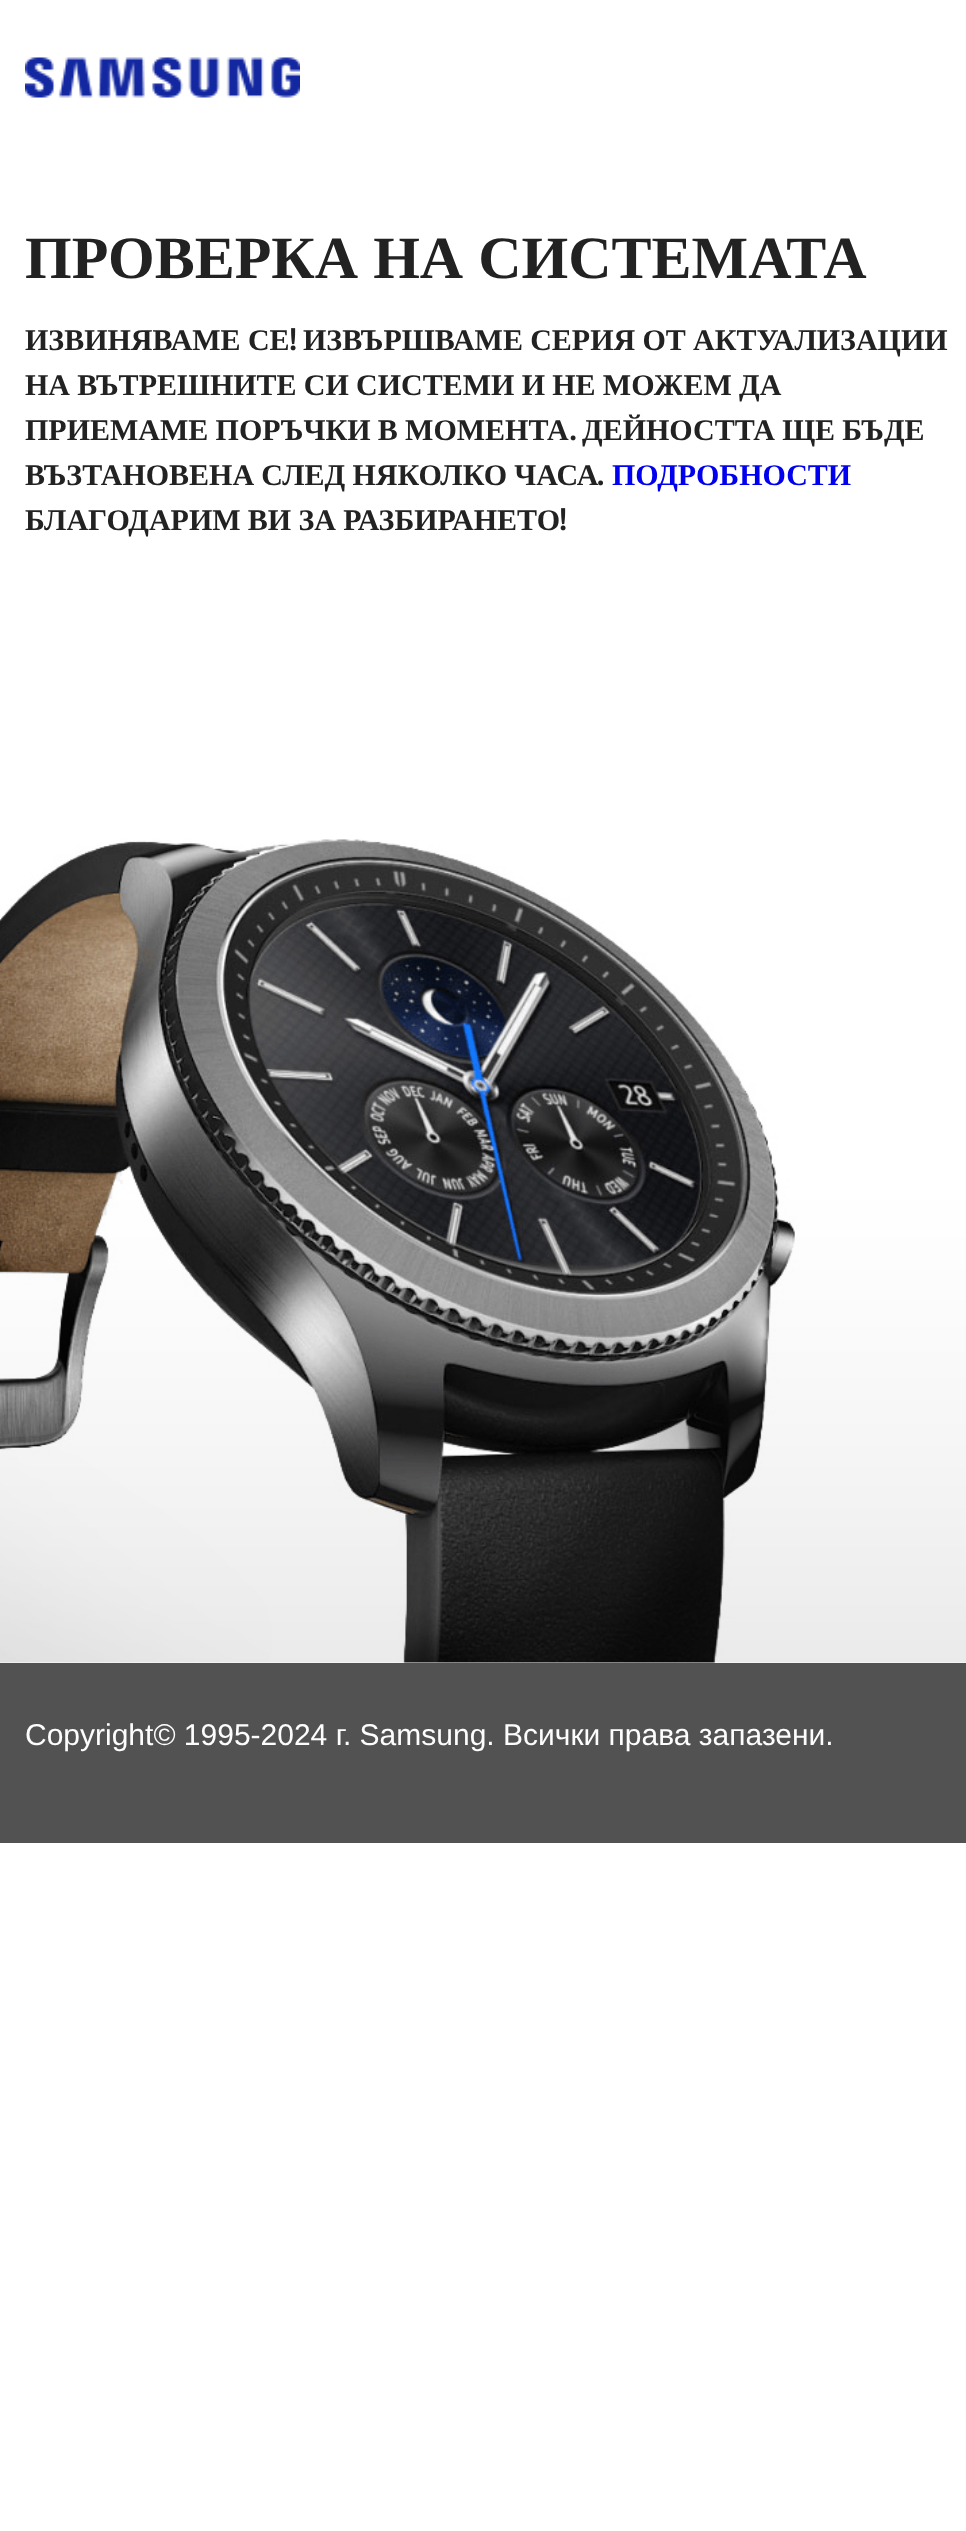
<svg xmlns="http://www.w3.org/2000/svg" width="966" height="2531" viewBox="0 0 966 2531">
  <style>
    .t1 { font: bold 60px Liberation Serif; fill: #222; }
    .t2 { font: bold 30px Liberation Serif; fill: #222; }
    .t3 { font: bold 30px Liberation Serif; fill: #00e; }
    .t4 { font: 30px Liberation Sans; fill: #fdfdfd; }
  </style>
  <rect width="100%" height="100%" fill="#fff"/>
  <image x="25" y="57" width="275" height="41" href="images/1.png"/>
  <image x="0" y="839" width="966" height="824" href="images/2.png"/>
  <text x="25" y="278" class="t1">ПРОВЕРКА НА СИСТЕМАТА</text>
  <text x="25" y="350" word-spacing="-0.25" class="t2">ИЗВИНЯВАМЕ СЕ</text>
  <image x="290" y="328" width="6" height="23" href="images/3.png"/>
  <text x="303" y="350" word-spacing="-0.25" class="t2">ИЗВЪРШВАМЕ СЕРИЯ ОТ АКТУАЛИЗАЦИИ</text>
  <text x="25" y="395" word-spacing="-0.25" class="t2">НА ВЪТРЕШНИТЕ СИ СИСТЕМИ И НЕ МОЖЕМ ДА</text>
  <text x="25" y="440" word-spacing="-0.25" class="t2">ПРИЕМАМЕ ПОРЪЧКИ В МОМЕНТА</text>
  <image x="570" y="435" width="6" height="6" href="images/4.png"/>
  <text x="582" y="440" word-spacing="-0.25" class="t2">ДЕЙНОСТТА ЩЕ БЪДЕ</text>
  <image x="598" y="480" width="5" height="6" href="images/5.png"/>
  <text x="25" y="485" word-spacing="-0.25" class="t2">ВЪЗТАНОВЕНА СЛЕД НЯКОЛКО ЧАСА</text>
  <text x="612" y="485" class="t3">ПОДРОБНОСТИ</text>
  <text x="25" y="530" word-spacing="-0.25" class="t2">БЛАГОДАРИМ ВИ ЗА РАЗБИРАНЕТО</text>
  <image x="560" y="508" width="6" height="23" href="images/3.png"/>
  <rect x="0" y="1663" width="966" height="180" fill="#525252"/>
  <text x="25" y="1745" class="t4">Copyright© 1995-2024 г. Samsung. Всички права запазени.</text>
</svg>
